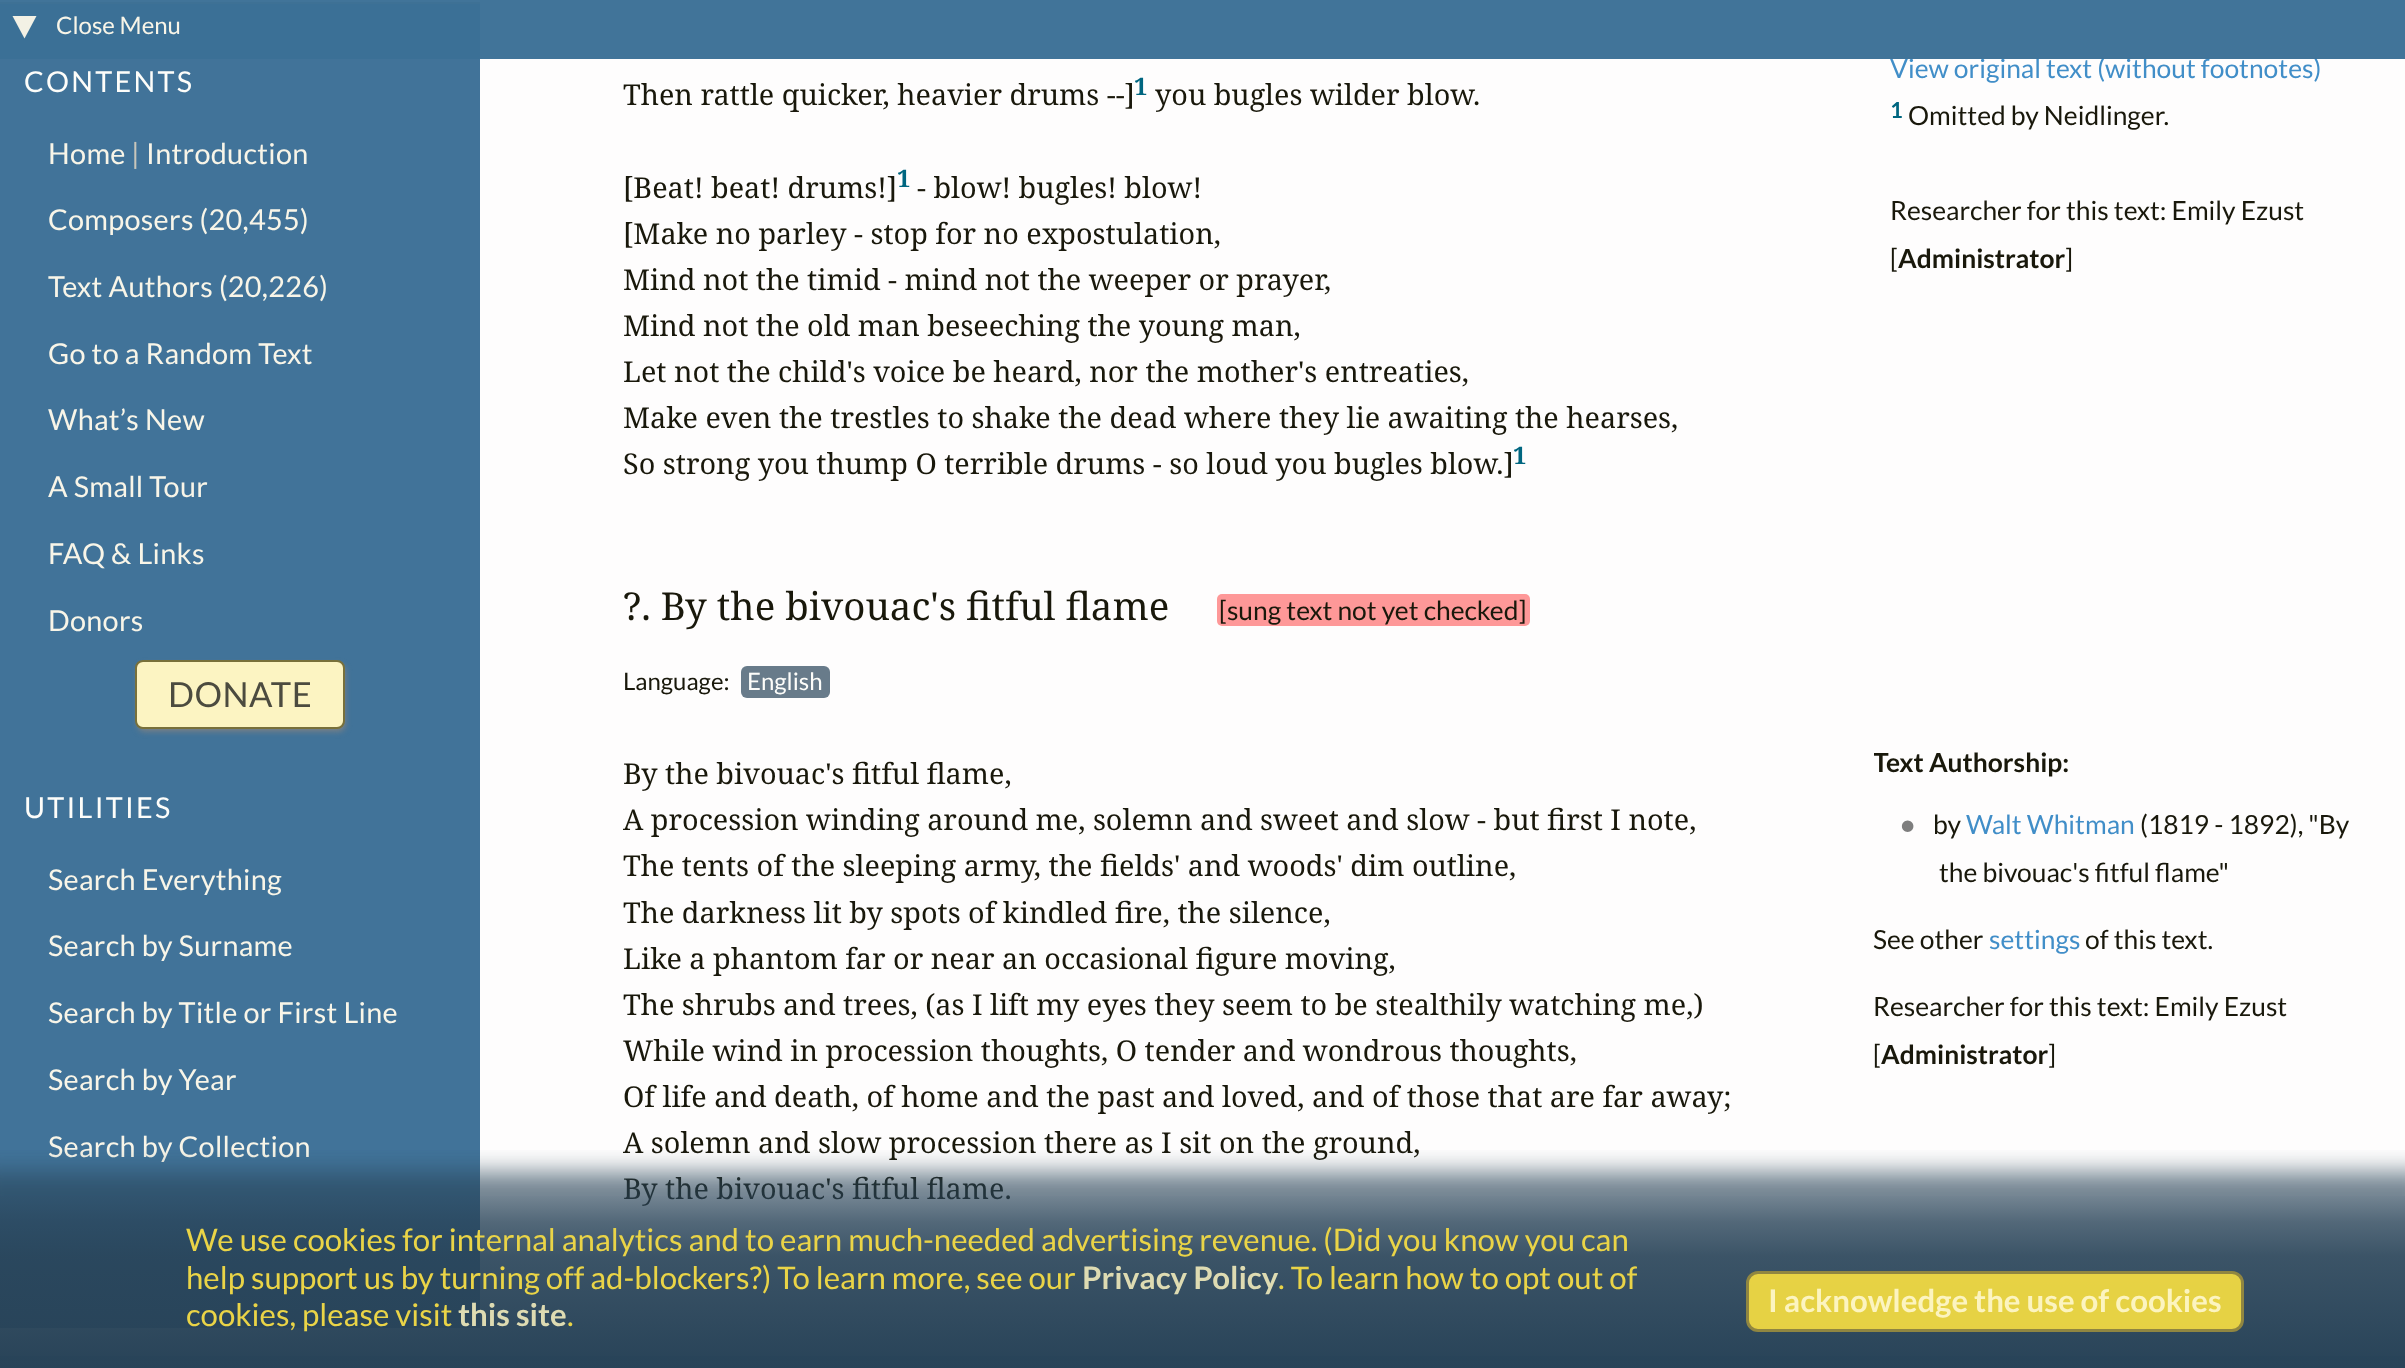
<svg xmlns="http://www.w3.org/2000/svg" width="2405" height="1368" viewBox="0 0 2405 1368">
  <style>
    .t1 { font: 26.4px Lato; fill: #418ec8; }
    .t2 { font: 24px Lato; fill: #f8f5e8; }
    .t3 { font: 28.8px Lato; letter-spacing: 2.25px; fill: #fdfdfa; }
    .t4 { font: 28.8px Lato; letter-spacing: 0.3px; fill: #f8f5e8; }
    .t5 { font: 28.8px Lato; letter-spacing: 0.3px; fill: #c8c6bb; }
    .t6 { font: 34.5px Lato; letter-spacing: 0.5px; fill: #4c4b3f; }
    .t7 { font: 28.8px Noto Serif; fill: #19180b; }
    .t8 { font: bold 24px Noto Serif; fill: #006680; }
    .t9 { font: bold 22px Lato; fill: #006680; }
    .t10 { font: 26.4px Lato; fill: #19180b; }
    .t11 { font: bold 26.4px Lato; fill: #19180b; }
    .t12 { font: 38.4px Noto Serif; fill: #19180b; }
    .t13 { font: 24px Lato; fill: #19180b; }
    .t14 { font: 24px Lato; fill: #fdfdfa; }
    .t15 { font: bold 26.4px Lato; fill: #7e7e7e; }
    .t16 { font: 31.2px Lato; fill: #ead447; }
    .t17 { font: bold 31.2px Lato; fill: #dedbb2; }
    .t18 { font: bold 31.2px Lato; fill: #fcf4c0; }
  </style>
  <defs>
    <clipPath id="clip1"><rect x="1874" y="702" width="487" height="513"/></clipPath>
    <clipPath id="clip2"><rect x="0" y="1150" width="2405" height="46"/></clipPath>
    <linearGradient id="g1" gradientUnits="userSpaceOnUse" x1="1203" y1="1368" x2="1203" y2="1196"><stop offset="0" stop-color="#284358"/><stop offset="0.65" stop-color="#284358" stop-opacity="0.91"/><stop offset="0.85" stop-color="#284358" stop-opacity="0.8"/><stop offset="1" stop-color="#284358" stop-opacity="0.65"/></linearGradient>
  </defs>
  <rect width="100%" height="100%" fill="#fefdfd"/>
  <rect x="0" y="4" width="480" height="1324" fill="#417399"/>
  <rect x="0" y="2" width="480" height="2" fill="#a19e8c"/>
  <text x="1890" y="78" class="t1">View original text (without footnotes)</text>
  <rect x="0" y="0" width="2405" height="59" fill="#3b6f96f7"/>
  <path d="M36.5 16H12.5L24.5 38.5Z" fill="#f3f1e5"/>
  <text x="56" y="34" class="t2">Close Menu</text>
  <text x="24" y="92" class="t3">CONTENTS</text>
  <text x="48" y="164" class="t4">Home</text>
  <text x="131" y="164" class="t5">|</text>
  <text x="146" y="164" class="t4">Introduction</text>
  <text x="48" y="230" class="t4">Composers (20,455)</text>
  <text x="48" y="297" class="t4">Text Authors (20,226)</text>
  <text x="48" y="364" class="t4">Go to a Random Text</text>
  <text x="48" y="430" class="t4">What’s New</text>
  <text x="48" y="497" class="t4">A Small Tour</text>
  <text x="48" y="564" class="t4">FAQ &amp; Links</text>
  <text x="48" y="631" class="t4">Donors</text>
  <rect x="138" y="665" width="207" height="66" rx="6" fill="#828282" filter="blur(3px)"/>
  <rect x="136" y="661" width="208" height="67" rx="7" fill="#fcf4c2" stroke="#78703a" stroke-width="2"/>
  <text x="168" y="707" class="t6">DONATE</text>
  <text x="24" y="818" class="t3">UTILITIES</text>
  <text x="48" y="890" class="t4">Search Everything</text>
  <text x="48" y="956" class="t4">Search by Surname</text>
  <text x="48" y="1023" class="t4">Search by Title or First Line</text>
  <text x="48" y="1090" class="t4">Search by Year</text>
  <text x="48" y="1157" class="t4">Search by Collection</text>
  <text x="623" y="105" class="t7">Then rattle quicker, heavier drums --]</text>
  <text x="1134" y="95" class="t8">1</text>
  <text x="1155" y="105" class="t7">you bugles wilder blow.</text>
  <text x="623" y="198" class="t7">[Beat! beat! drums!]</text>
  <text x="897" y="187" class="t8">1</text>
  <text x="917" y="198" class="t7">- blow! bugles! blow!</text>
  <text x="623" y="244" class="t7">[Make no parley - stop for no expostulation,</text>
  <text x="623" y="290" class="t7">Mind not the timid - mind not the weeper or prayer,</text>
  <text x="623" y="336" class="t7">Mind not the old man beseeching the young man,</text>
  <text x="623" y="382" class="t7">Let not the child's voice be heard, nor the mother's entreaties,</text>
  <text x="623" y="428" class="t7">Make even the trestles to shake the dead where they lie awaiting the hearses,</text>
  <text x="623" y="474" class="t7">So strong you thump O terrible drums - so loud you bugles blow.]</text>
  <text x="1513" y="464" class="t8">1</text>
  <text x="1890" y="118" class="t9">1</text>
  <text x="1908" y="125" class="t10">Omitted by Neidlinger.</text>
  <text x="1890" y="220" class="t10">Researcher for this text: Emily Ezust</text>
  <text x="1890" y="268" class="t10">[</text>
  <text x="1898" y="268" class="t11">Administrator</text>
  <text x="2065" y="268" class="t10">]</text>
  <text x="623" y="620" class="t12">?. By the bivouac's fitful flame</text>
  <rect x="1217" y="594" width="313" height="32" rx="5" fill="#fe9898"/>
  <text x="1219" y="620" class="t10">[sung text not yet checked]</text>
  <text x="623" y="690" class="t13">Language:</text>
  <rect x="741" y="666" width="89" height="32" rx="6" fill="#687b8a"/>
  <text x="747" y="690" class="t14">English</text>
  <text x="623" y="784" class="t7">By the bivouac's fitful flame,</text>
  <text x="623" y="830" class="t7">A procession winding around me, solemn and sweet and slow - but first I note,</text>
  <text x="623" y="876" class="t7">The tents of the sleeping army, the fields' and woods' dim outline,</text>
  <text x="623" y="923" class="t7">The darkness lit by spots of kindled fire, the silence,</text>
  <text x="623" y="969" class="t7">Like a phantom far or near an occasional figure moving,</text>
  <text x="623" y="1015" class="t7">The shrubs and trees, (as I lift my eyes they seem to be stealthily watching me,)</text>
  <text x="623" y="1061" class="t7">While wind in procession thoughts, O tender and wondrous thoughts,</text>
  <text x="623" y="1107" class="t7">Of life and death, of home and the past and loved, and of those that are far away;</text>
  <text x="623" y="1153" class="t7">A solemn and slow procession there as I sit on the ground,</text>
  <text x="623" y="1199" class="t7">By the bivouac's fitful flame.</text>
  <g clip-path="url(#clip1)">
    <text x="1873" y="772" class="t11">Text Authorship:</text>
  </g>
  <text x="1900" y="834" class="t15">•</text>
  <text x="1933" y="834" class="t10">by</text>
  <text x="1966" y="834" class="t1">Walt Whitman</text>
  <text x="2140" y="834" class="t10">(1819 - 1892), "By</text>
  <text x="1939" y="882" class="t10">the bivouac's fitful flame"</text>
  <text x="1873" y="949" class="t10">See other</text>
  <text x="1989" y="949" class="t1">settings</text>
  <text x="2085" y="949" class="t10">of this text.</text>
  <text x="1873" y="1016" class="t10">Researcher for this text: Emily Ezust</text>
  <text x="1873" y="1064" class="t10">[</text>
  <text x="1881" y="1064" class="t11">Administrator</text>
  <text x="2048" y="1064" class="t10">]</text>
  <rect x="0" y="1356" width="2405" height="5" fill="#4d90c4"/>
  <g clip-path="url(#clip2)">
    <rect x="-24" y="1172" width="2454" height="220" fill="#284358a6" filter="blur(12px)"/>
  </g>
  <rect x="0" y="1196" width="2405" height="172" fill="url(#g1)"/>
  <text x="186" y="1251" class="t16">We use cookies for internal analytics and to earn much-needed advertising revenue. (Did you know you can</text>
  <text x="186" y="1289" class="t16">help support us by turning off ad-blockers?) To learn more, see our</text>
  <text x="1082" y="1289" class="t17">Privacy Policy</text>
  <text x="1278" y="1289" class="t16">. To learn how to opt out of</text>
  <text x="186" y="1326" class="t16">cookies, please visit</text>
  <text x="458" y="1326" class="t17">this site</text>
  <text x="567" y="1326" class="t16">.</text>
  <rect x="1747.5" y="1272.5" width="495" height="58" rx="10.5" fill="#f0d942f2" stroke="#908641" stroke-width="3"/>
  <text x="1768" y="1312" class="t18">I acknowledge the use of cookies</text>
</svg>
